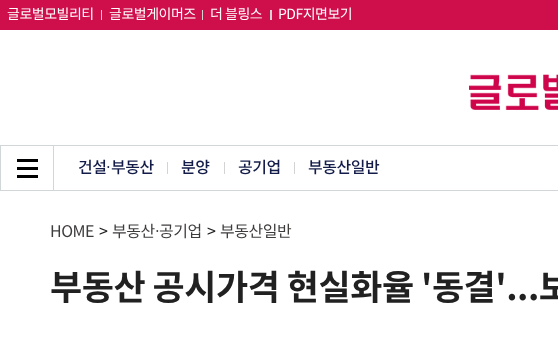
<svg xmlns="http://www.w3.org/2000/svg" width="558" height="340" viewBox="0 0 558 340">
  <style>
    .t1 { font: 14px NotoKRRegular; letter-spacing: -0.5px; fill: #fff; }
    .t2 { font: 500 16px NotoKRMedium; letter-spacing: -0.5px; fill: #131c48; }
    .t3 { font: 16px NanumGothic; letter-spacing: -0.5px; fill: #131c48; }
    .t4 { font: 16px NotoKRRegular; letter-spacing: -0.5px; fill: #3f3c3c; }
    .t5 { font: 16px NotoKRRegular; letter-spacing: -0.5px; fill: #212121; }
    .t6 { font: 16px NanumGothic; letter-spacing: -0.5px; fill: #3f3c3c; }
    .t7 { font: bold 35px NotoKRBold; letter-spacing: -0.5px; fill: #212121; }
  </style>
  <rect width="100%" height="100%" fill="#fff"/>
  <rect x="0" y="0" width="558" height="30" fill="#ce0f4c"/>
  <text x="7" y="19" class="t1">글로벌모빌리티</text>
  <rect x="101" y="10" width="1" height="10" fill="#d3d3d3"/>
  <text x="109" y="19" class="t1">글로벌게이머즈</text>
  <rect x="202" y="10" width="1" height="10" fill="#d3d3d3"/>
  <text x="210" y="19" class="t1">더 블링스</text>
  <rect x="270" y="10" width="2" height="10" fill="#d3d3d3"/>
  <text x="278" y="19" class="t1">PDF지면보기</text>
  <image x="469" y="74" width="89" height="36" href="images/1.png"/>
  <rect x="0.5" y="145.5" width="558" height="45" fill="none" stroke="#d1d6d9"/>
  <rect x="53" y="146" width="1" height="44" fill="#d1d6d9"/>
  <image x="17" y="159" width="21" height="19" href="images/2.png"/>
  <text x="78" y="173" class="t2">건설</text>
  <text x="106" y="173" class="t3">·</text>
  <text x="111" y="173" class="t2">부동산</text>
  <image x="167" y="162" width="1" height="12" href="images/3.png"/>
  <text x="181" y="173" class="t2">분양</text>
  <image x="224" y="162" width="1" height="12" href="images/3.png"/>
  <text x="238" y="173" class="t2">공기업</text>
  <image x="294" y="162" width="1" height="12" href="images/3.png"/>
  <text x="308" y="173" class="t2">부동산일반</text>
  <text x="50" y="237" class="t4">HOME</text>
  <text x="99" y="237" class="t5">&gt;</text>
  <text x="112" y="237" class="t4">부동산</text>
  <text x="155" y="237" class="t6">·</text>
  <text x="159" y="237" class="t4">공기업</text>
  <text x="207" y="237" class="t5">&gt;</text>
  <text x="220" y="237" class="t4">부동산일반</text>
  <text x="50" y="300" class="t7">부동산 공시가격 현실화율 '동결'...보</text>
</svg>
